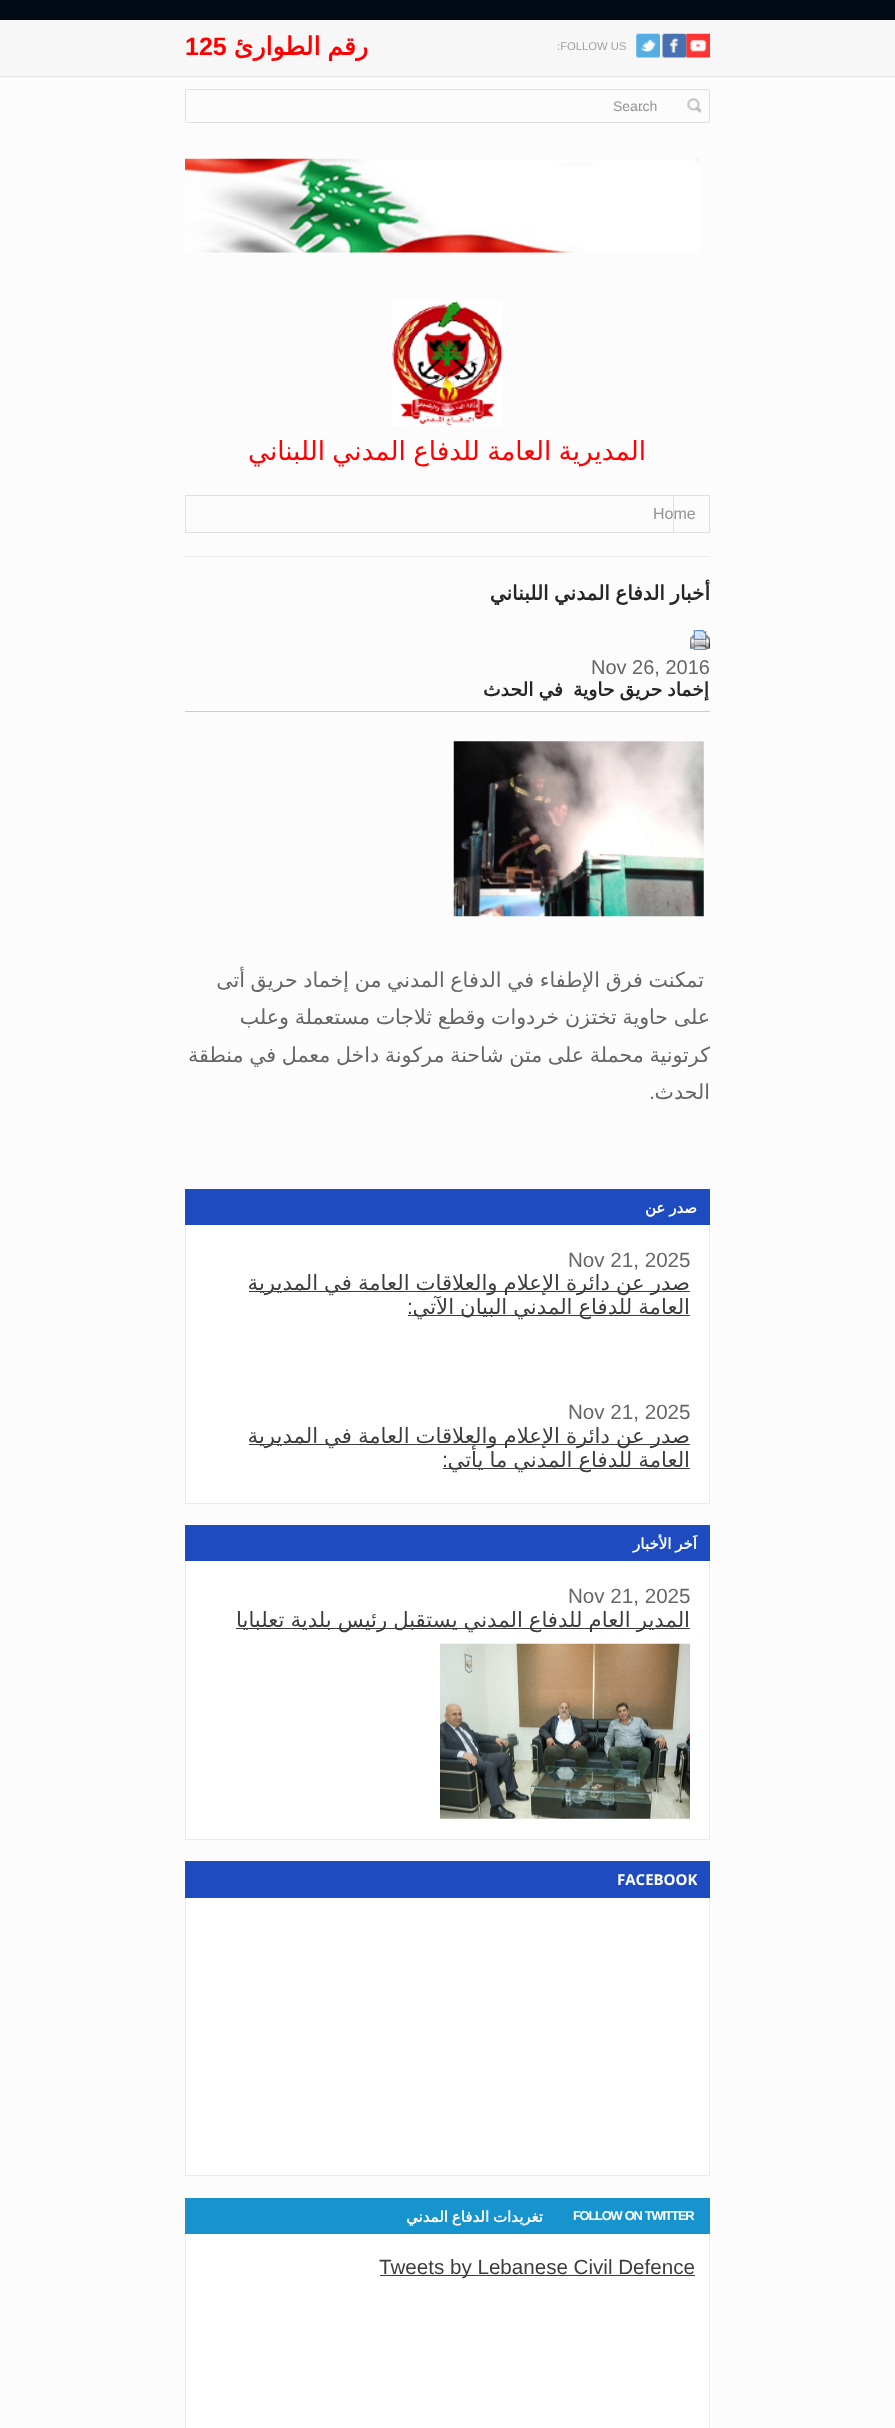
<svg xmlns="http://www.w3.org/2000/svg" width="895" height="2428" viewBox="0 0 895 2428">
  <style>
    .t1 { font: 11.25px Liberation Sans; fill: #a1a1a1; }
    .t2 { font: bold 25px DejaVu Sans; direction: rtl; fill: #f00; }
    .t3 { font: bold 25px Liberation Sans; fill: #f00; }
    .t4 { font: 14px Liberation Sans; fill: #939393; }
    .t5 { font: 26.25px DejaVu Sans; direction: rtl; fill: #f00; }
    .t6 { font: 16px Liberation Sans; fill: #939393; }
    .t7 { font: bold 20px DejaVu Sans; direction: rtl; fill: #262626; }
    .t8 { font: 20px Liberation Sans; fill: #666; }
    .t9 { font: bold 18.75px DejaVu Sans; direction: rtl; fill: #262626; }
    .t10 { font: 20.6px DejaVu Sans; direction: rtl; fill: #666; }
    .t11 { font: 20.6px Liberation Sans; direction: rtl; fill: #666; }
    .t12 { font: bold 15px DejaVu Sans; direction: rtl; fill: #fff; }
    .t13 { font: 20.6px Liberation Sans; fill: #666; }
    .t14 { font: 21.2px DejaVu Sans; direction: rtl; fill: #3d3d3d; }
    .t15 { font: 21.2px Liberation Sans; direction: rtl; fill: #3d3d3d; }
    .t16 { font: bold 15px Open Sans; fill: #fff; }
    .t17 { font: bold 12.9px Liberation Sans; letter-spacing: -1.25px; fill: #fff; }
    .t18 { font: 20.6px Liberation Sans; fill: #3d3d3d; }
  </style>
  <rect width="100%" height="100%" fill="#fcfcfc"/>
  <rect x="0" y="0" width="895" height="20" fill="#010c16"/>
  <rect x="0" y="20" width="895" height="58" fill="#f7f7f7"/>
  <rect x="0" y="78" width="895" height="1" fill="#fff"/>
  <rect x="0" y="76" width="895" height="1" fill="#e6e6e6"/>
  <image x="686" y="33" width="24" height="25" href="images/1.png"/>
  <image x="662" y="33" width="25" height="25" href="images/2.png"/>
  <image x="636" y="33" width="24" height="25" href="images/3.png"/>
  <text x="557" y="50" class="t1">:FOLLOW US</text>
  <text x="368" y="55" word-spacing="-1" class="t2">رقم الطوارئ</text>
  <text x="185" y="55" class="t3">125</text>
  <rect x="185.5" y="89.5" width="524" height="33" rx="2" fill="none" stroke="#dedede"/>
  <image x="687" y="97" width="15" height="16" href="images/4.png"/>
  <text x="613" y="111" class="t4">Search</text>
  <text x="630" y="111" class="t4">…</text>
  <image x="185" y="158" width="514" height="95" href="images/5.png"/>
  <image x="392" y="301" width="111" height="125" href="images/6.png"/>
  <text x="646" y="460" word-spacing="-1" class="t5">المديرية العامة للدفاع المدني اللبناني</text>
  <rect x="185.5" y="495.5" width="524" height="37" fill="none" stroke="#e0e0e0"/>
  <text x="653" y="519" class="t6">Home</text>
  <rect x="673" y="496" width="1" height="37" fill="#e0e0e0"/>
  <rect x="185" y="556" width="525" height="1" fill="#ededed"/>
  <text x="710" y="600" word-spacing="-1" class="t7">أخبار الدفاع المدني اللبناني</text>
  <image x="690" y="630" width="20" height="20" href="images/7.png"/>
  <text x="591" y="674" class="t8">Nov 26, 2016</text>
  <text x="709" y="696" word-spacing="-1" class="t9">إخماد حريق حاوية</text>
  <text x="563" y="696" word-spacing="-1" class="t9">في الحدث</text>
  <rect x="185" y="711" width="525" height="1" fill="#ccc"/>
  <image x="453" y="741" width="251" height="176" href="images/8.png"/>
  <text x="704" y="987" word-spacing="-0.9" class="t10">تمكنت فرق الإطفاء في الدفاع المدني من إخماد حريق أتى</text>
  <text x="710" y="1024" word-spacing="-0.9" class="t10">على حاوية تختزن خردوات وقطع ثلاجات مستعملة وعلب</text>
  <text x="710" y="1062" word-spacing="-0.9" class="t10">كرتونية محملة على متن شاحنة مركونة داخل معمل في منطقة</text>
  <text x="710" y="1099" class="t10">الحدث</text>
  <text x="655" y="1099" class="t11">.</text>
  <rect x="185" y="1189" width="525" height="36" fill="#1e4bbf"/>
  <text x="697" y="1213" word-spacing="-0.9" class="t12">صدر عن</text>
  <rect x="186" y="1225" width="523" height="278" fill="#fff"/>
  <rect x="709" y="1225" width="1" height="279" fill="#ebebeb"/>
  <rect x="185" y="1503" width="525" height="1" fill="#ebebeb"/>
  <rect x="185" y="1225" width="1" height="279" fill="#ebebeb"/>
  <text x="568" y="1267" class="t13">Nov 21, 2025</text>
  <rect x="249" y="1291" width="441" height="1" fill="#3d3d3d"/>
  <text x="690" y="1290" word-spacing="-0.75" class="t14">صدر عن دائرة الإعلام والعلاقات العامة في المديرية</text>
  <rect x="408" y="1315" width="282" height="1" fill="#3d3d3d"/>
  <text x="690" y="1314" word-spacing="-0.75" class="t14">العامة للدفاع المدني البيان الآتي</text>
  <text x="413" y="1314" class="t15">:</text>
  <text x="568" y="1419" class="t13">Nov 21, 2025</text>
  <rect x="249" y="1444" width="441" height="1" fill="#3d3d3d"/>
  <text x="690" y="1443" word-spacing="-0.75" class="t14">صدر عن دائرة الإعلام والعلاقات العامة في المديرية</text>
  <rect x="443" y="1468" width="247" height="1" fill="#3d3d3d"/>
  <text x="690" y="1467" word-spacing="-0.75" class="t14">العامة للدفاع المدني ما يأتي</text>
  <text x="448" y="1467" class="t15">:</text>
  <rect x="185" y="1525" width="525" height="36" fill="#1e4bbf"/>
  <text x="697" y="1549" word-spacing="-0.9" class="t12">اَخر الأخبار</text>
  <rect x="186" y="1561" width="523" height="278" fill="#fff"/>
  <rect x="709" y="1561" width="1" height="279" fill="#ebebeb"/>
  <rect x="185" y="1839" width="525" height="1" fill="#ebebeb"/>
  <rect x="185" y="1561" width="1" height="279" fill="#ebebeb"/>
  <text x="568" y="1603" class="t13">Nov 21, 2025</text>
  <rect x="236" y="1628" width="454" height="1" fill="#3d3d3d"/>
  <text x="690" y="1627" word-spacing="-0.75" class="t14">المدير العام للدفاع المدني يستقبل رئيس بلدية تعلبايا</text>
  <image x="440" y="1643" width="250" height="176" href="images/9.png"/>
  <rect x="185" y="1861" width="525" height="37" fill="#1e4bbf"/>
  <text x="617" y="1885" class="t16">FACEBOOK</text>
  <rect x="186" y="1898" width="523" height="277" fill="#fff"/>
  <rect x="709" y="1898" width="1" height="278" fill="#ebebeb"/>
  <rect x="185" y="2175" width="525" height="1" fill="#ebebeb"/>
  <rect x="185" y="1898" width="1" height="278" fill="#ebebeb"/>
  <rect x="185" y="2198" width="525" height="36" fill="#1793cd"/>
  <text x="573" y="2220" word-spacing="1" class="t17">FOLLOW ON TWITTER</text>
  <text x="543" y="2222" word-spacing="-0.9" class="t12">تغريدات الدفاع المدني</text>
  <rect x="186" y="2234" width="523" height="194" fill="#fff"/>
  <rect x="709" y="2234" width="1" height="194" fill="#ebebeb"/>
  <rect x="185" y="2234" width="1" height="194" fill="#ebebeb"/>
  <rect x="380" y="2275" width="315" height="1" fill="#3d3d3d"/>
  <text x="379" y="2274" class="t18">Tweets by Lebanese Civil Defence</text>
</svg>
